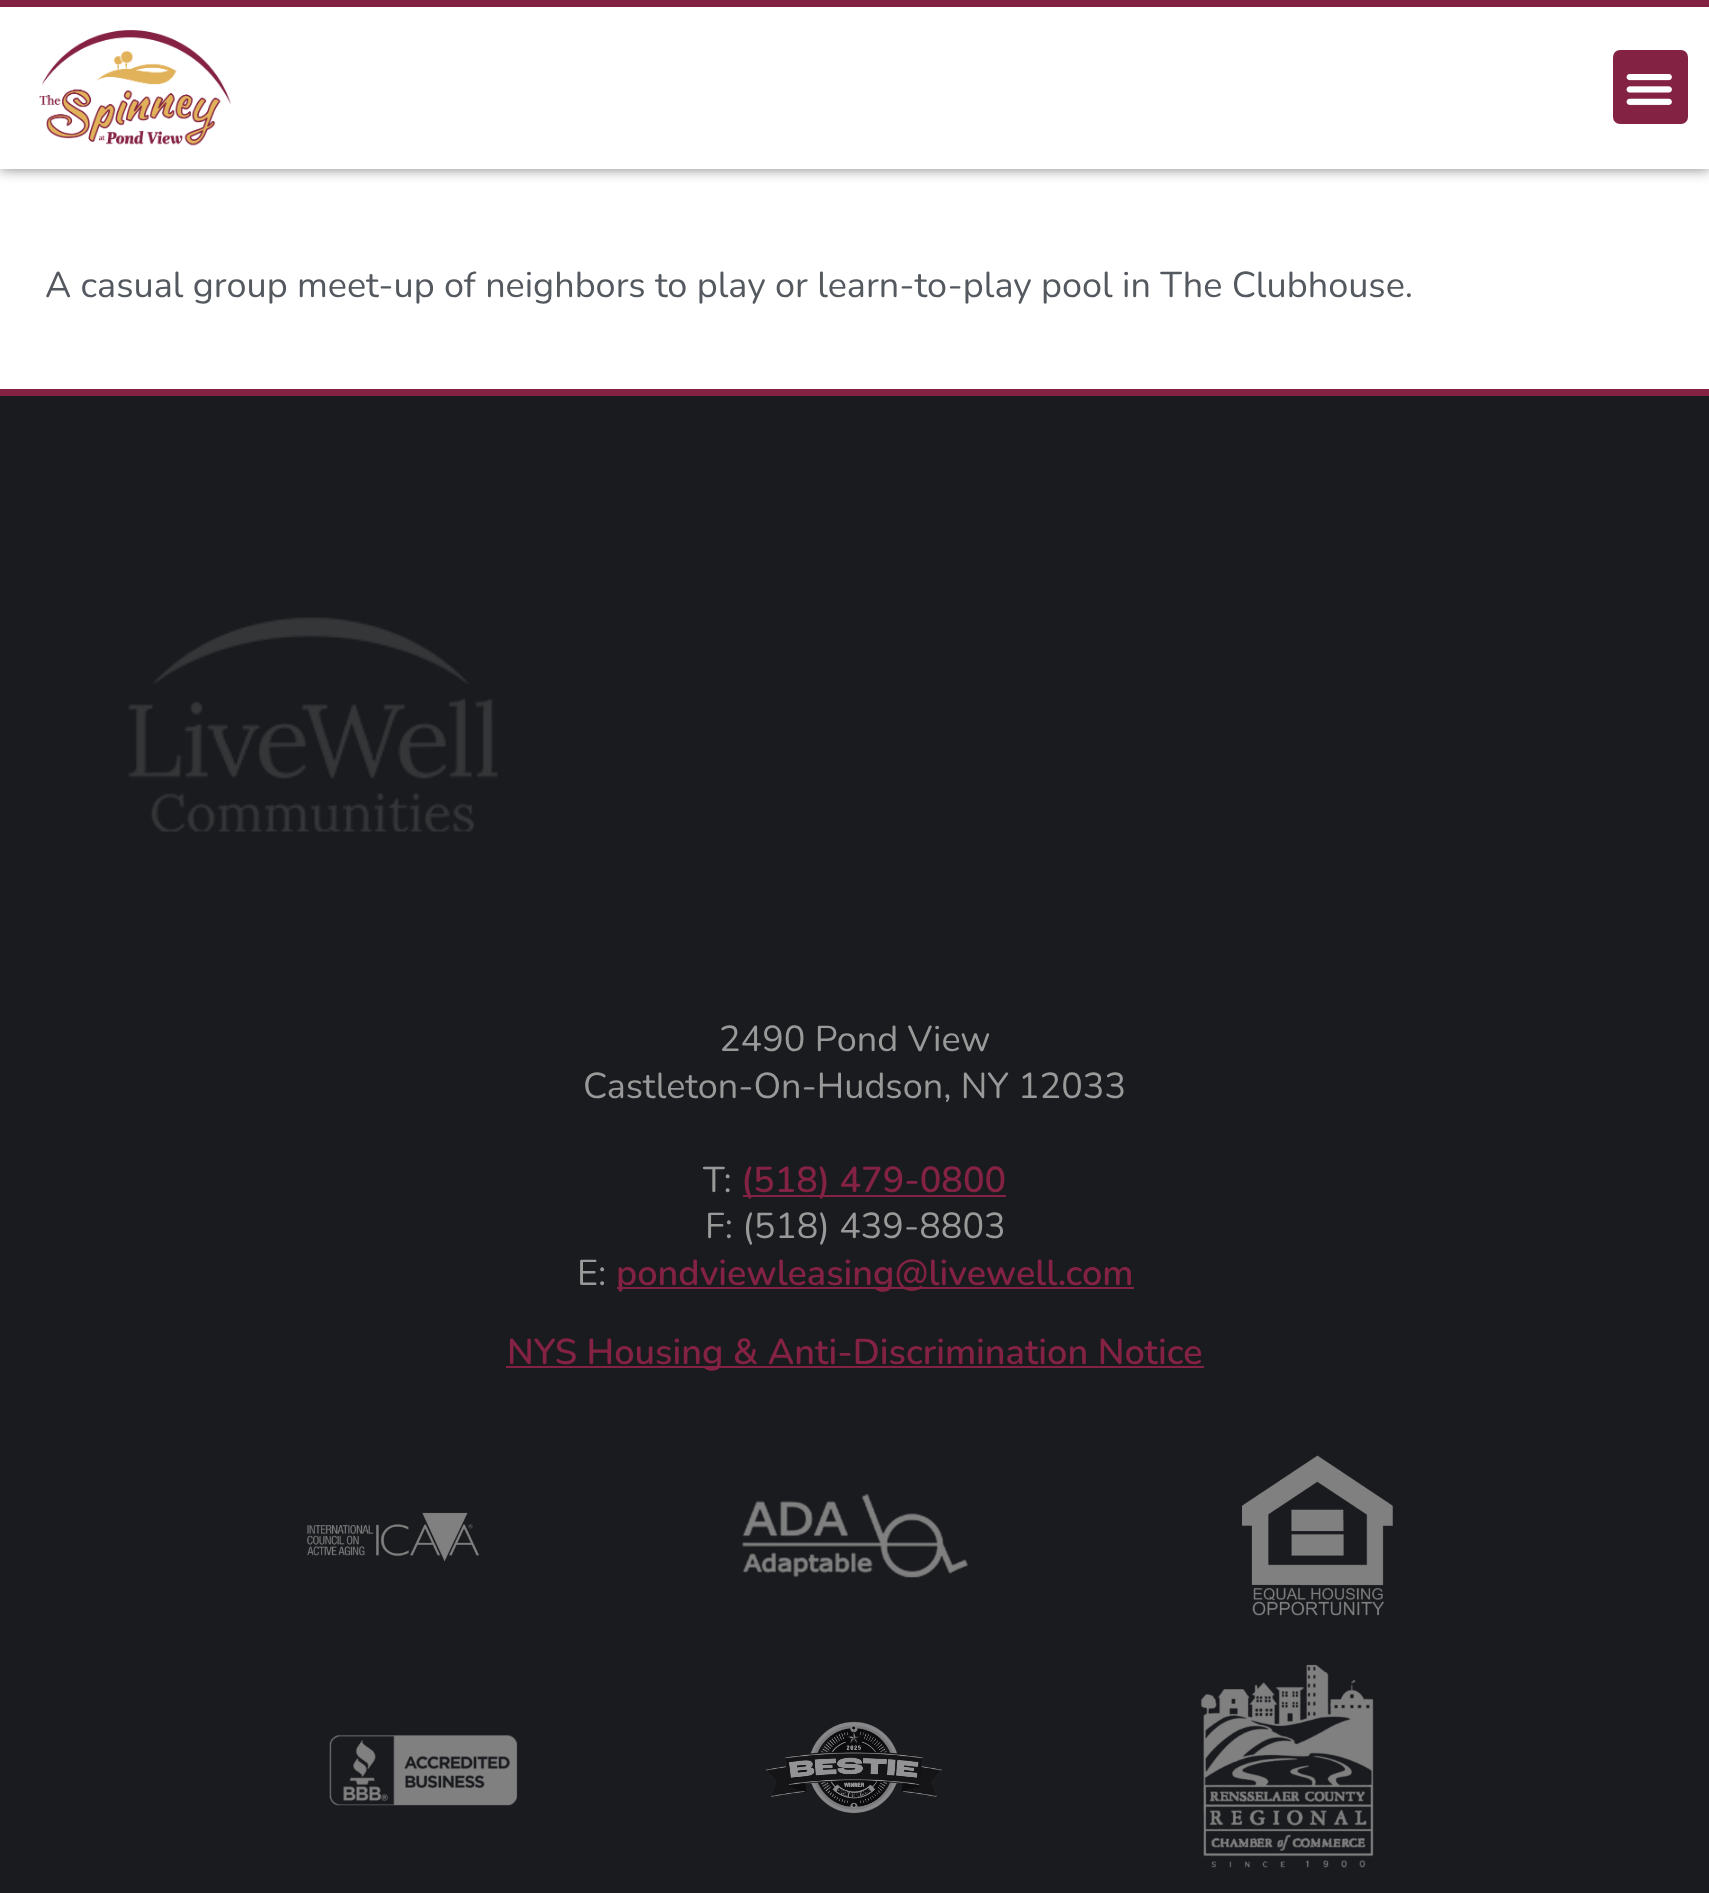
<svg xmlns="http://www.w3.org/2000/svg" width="1709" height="1893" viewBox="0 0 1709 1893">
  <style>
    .t1 { font: 36px Nunito; fill: #54595f; }
    .t2 { font: 36px Nunito; fill: #999; }
    .t3 { font: 600 36px Nunito; fill: #842243; }
  </style>
  <rect width="100%" height="100%" fill="#fff"/>
  <rect x="0" y="0" width="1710" height="169" fill="#00000080" filter="blur(7px)"/>
  <rect x="0" y="7" width="1709" height="162" fill="#fff"/>
  <rect x="0" y="0" width="1709" height="7" fill="#842243"/>
  <image x="39" y="30" width="193" height="116" href="images/1.png"/>
  <rect x="1613" y="50" width="75" height="74" rx="7" fill="#842243"/>
  <image x="1626" y="74" width="46" height="31" href="images/2.png"/>
  <text x="45" y="297" class="t1">A casual group meet-up of neighbors to play or learn-to-play pool in The Clubhouse.</text>
  <rect x="0" y="396" width="1709" height="1497" fill="#1a1b1f"/>
  <rect x="0" y="389" width="1709" height="7" fill="#842243"/>
  <image x="128" y="617" width="370" height="215" href="images/3.png"/>
  <text x="719" y="1051" class="t2">2490 Pond View</text>
  <text x="583" y="1098" class="t2">Castleton-On-Hudson, NY 12033</text>
  <text x="703" y="1192" class="t2">T:</text>
  <rect x="743" y="1195" width="263" height="2" fill="#842243"/>
  <text x="741" y="1192" class="t3">(518) 479-0800</text>
  <text x="705" y="1238" class="t2">F: (518) 439-8803</text>
  <text x="577" y="1285" class="t2">E:</text>
  <rect x="617" y="1287" width="517" height="2" fill="#842243"/>
  <text x="616" y="1285" class="t3">pondviewleasing@livewell.com</text>
  <rect x="506" y="1366" width="698" height="2" fill="#842243"/>
  <text x="507" y="1364" class="t3">NYS Housing &amp; Anti-Discrimination Notice</text>
  <image x="307" y="1512" width="172" height="50" href="images/4.png"/>
  <image x="742" y="1494" width="226" height="84" href="images/5.png"/>
  <image x="1242" y="1455" width="151" height="161" href="images/6.png"/>
  <image x="329" y="1735" width="189" height="71" href="images/7.png"/>
  <image x="765" y="1721" width="178" height="93" href="images/8.png"/>
  <image x="1200" y="1664" width="174" height="204" href="images/9.png"/>
</svg>
